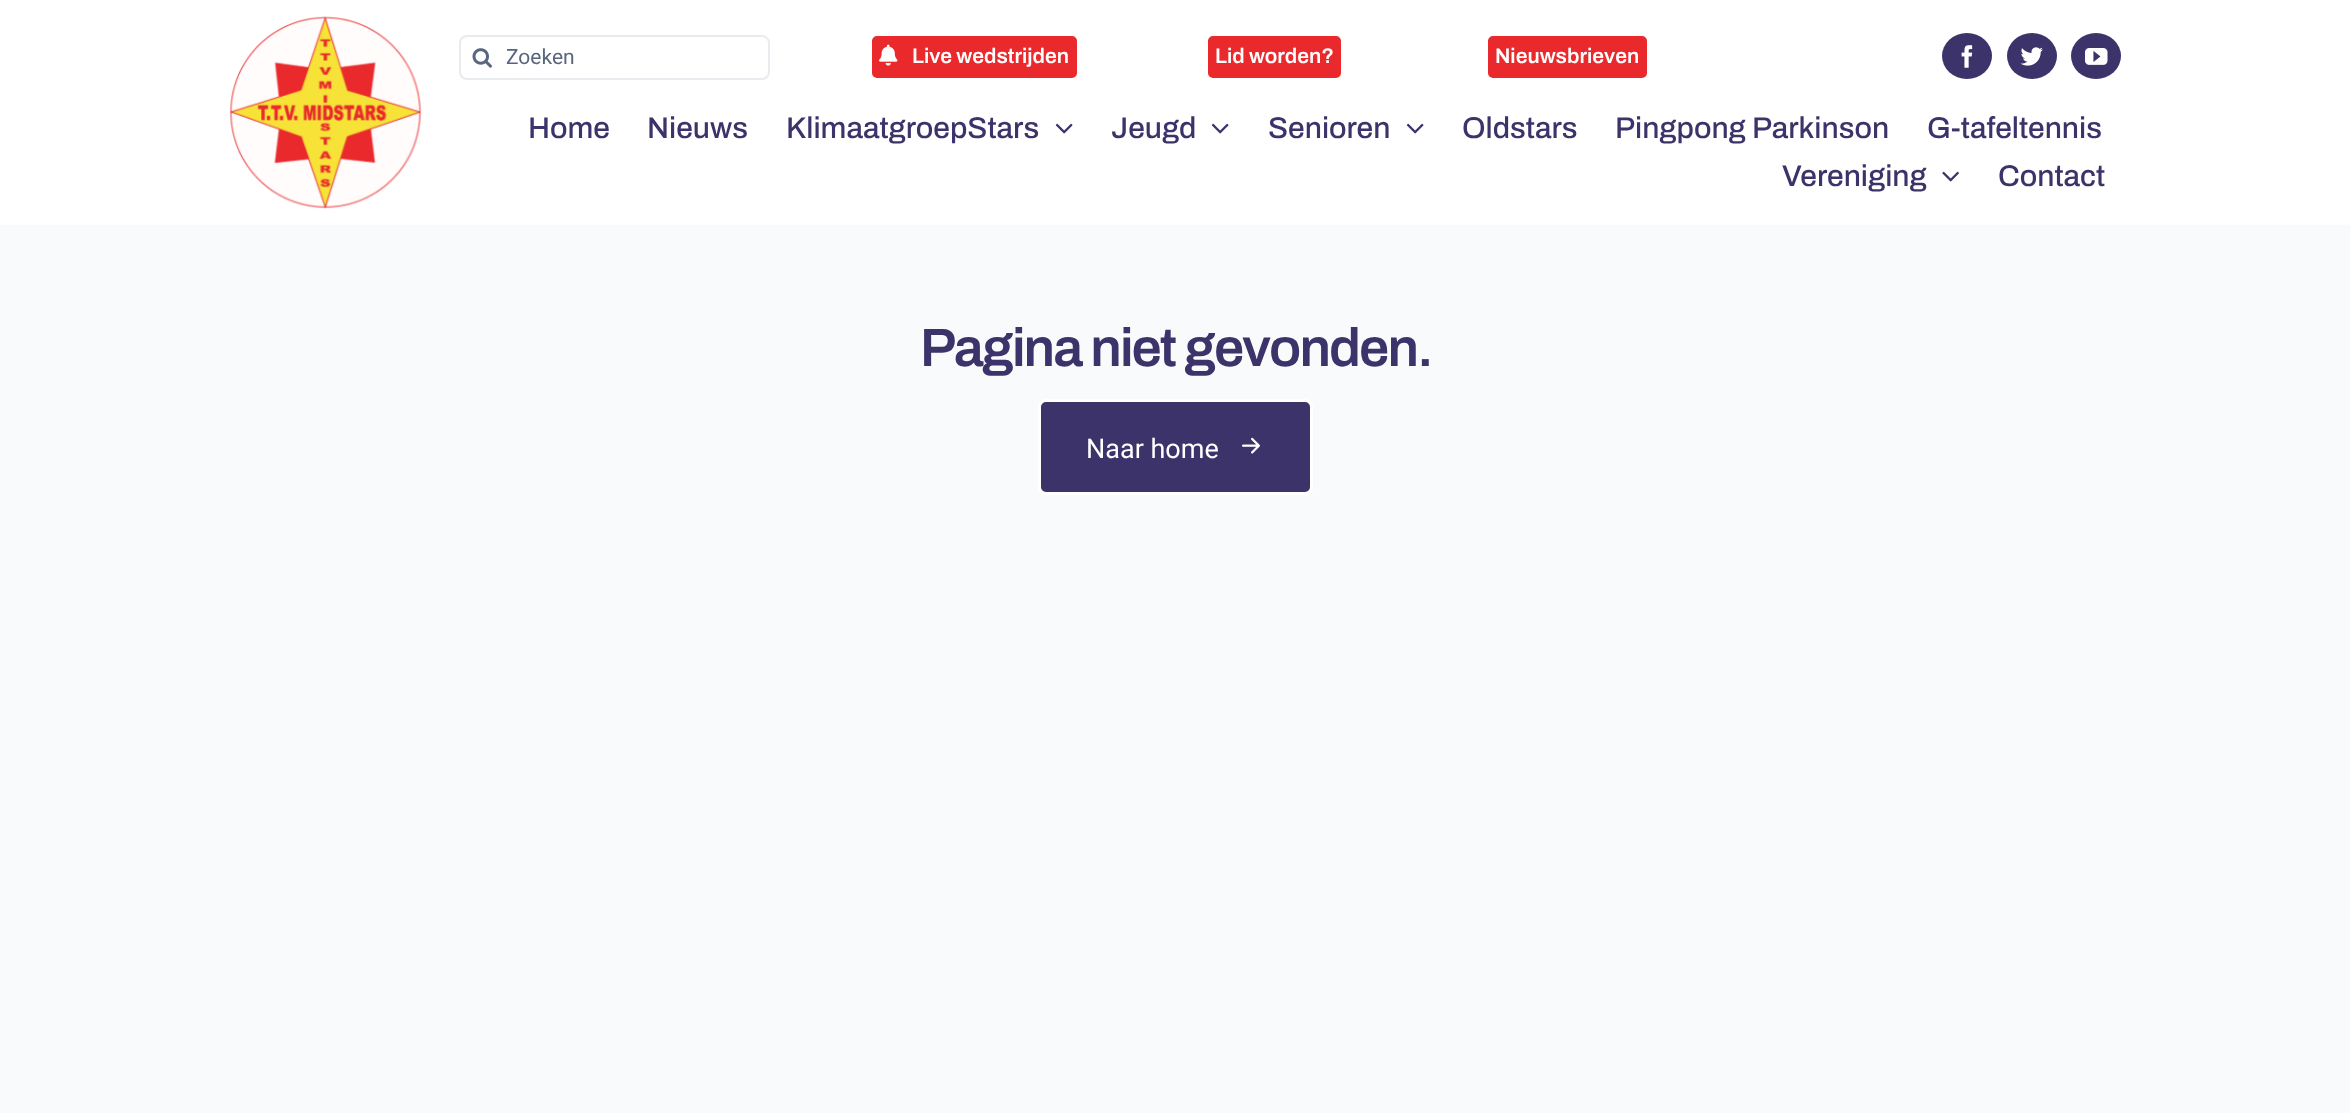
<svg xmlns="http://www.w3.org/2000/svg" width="2350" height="1113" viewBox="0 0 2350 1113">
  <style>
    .t1 { font: 21px Roboto; fill: #59667d; }
    .t2 { font: 600 21px Archivo; fill: #fff; }
    .t3 { font: 500 30px Archivo; fill: #3b336a; }
    .t4 { font: 600 54px Archivo; letter-spacing: -1.9px; fill: #3b336a; }
    .t5 { font: 27px Roboto; fill: #fff; }
  </style>
  <rect width="100%" height="100%" fill="#f9fafb"/>
  <rect x="0" y="0" width="2350" height="225" fill="#fff"/>
  <image x="229" y="16" width="193" height="193" href="images/1.png"/>
  <rect x="460" y="36" width="309" height="43" rx="7" fill="none" stroke="#e8ebef" stroke-width="2"/>
  <image x="472" y="48" width="20" height="20" href="images/2.png"/>
  <text x="506" y="64" class="t1">Zoeken</text>
  <rect x="870.5" y="34.5" width="208" height="45" rx="6.5" fill="#e9292c" stroke="#fff" stroke-width="3"/>
  <image x="879" y="44" width="19" height="22" href="images/3.png"/>
  <text x="912" y="63" class="t2">Live wedstrijden</text>
  <rect x="1206.5" y="34.5" width="136" height="45" rx="6.5" fill="#e9292c" stroke="#fff" stroke-width="3"/>
  <text x="1215" y="63" class="t2">Lid worden?</text>
  <rect x="1486.5" y="34.5" width="162" height="45" rx="6.5" fill="#e9292c" stroke="#fff" stroke-width="3"/>
  <text x="1495" y="63" class="t2">Nieuwsbrieven</text>
  <ellipse cx="1967" cy="56" rx="25" ry="23" fill="#3b336a"/>
  <image x="1961" y="45" width="12" height="23" href="images/4.png"/>
  <ellipse cx="2032" cy="56" rx="25" ry="23" fill="#3b336a"/>
  <image x="2020" y="47" width="23" height="19" href="images/5.png"/>
  <ellipse cx="2096" cy="56" rx="25" ry="23" fill="#3b336a"/>
  <image x="2085" y="48" width="23" height="17" href="images/6.png"/>
  <text x="528" y="138" class="t3">Home</text>
  <text x="647" y="138" class="t3">Nieuws</text>
  <text x="786" y="138" class="t3">KlimaatgroepStars</text>
  <image x="1055" y="123" width="18" height="11" href="images/7.png"/>
  <text x="1111" y="138" class="t3">Jeugd</text>
  <image x="1211" y="123" width="18" height="11" href="images/7.png"/>
  <text x="1268" y="138" class="t3">Senioren</text>
  <image x="1406" y="123" width="18" height="11" href="images/7.png"/>
  <text x="1462" y="138" class="t3">Oldstars</text>
  <text x="1615" y="138" class="t3">Pingpong Parkinson</text>
  <text x="1927" y="138" class="t3">G-tafeltennis</text>
  <text x="1782" y="186" class="t3">Vereniging</text>
  <image x="1942" y="171" width="17" height="11" href="images/8.png"/>
  <text x="1998" y="186" class="t3">Contact</text>
  <text x="920" y="366" class="t4">Pagina niet gevonden.</text>
  <rect x="1039.5" y="400.5" width="272" height="93" rx="6.5" fill="#3b336a" stroke="#fff" stroke-width="3"/>
  <text x="1086" y="458" class="t5">Naar home</text>
  <image x="1242" y="437" width="18" height="17" href="images/9.png"/>
</svg>
